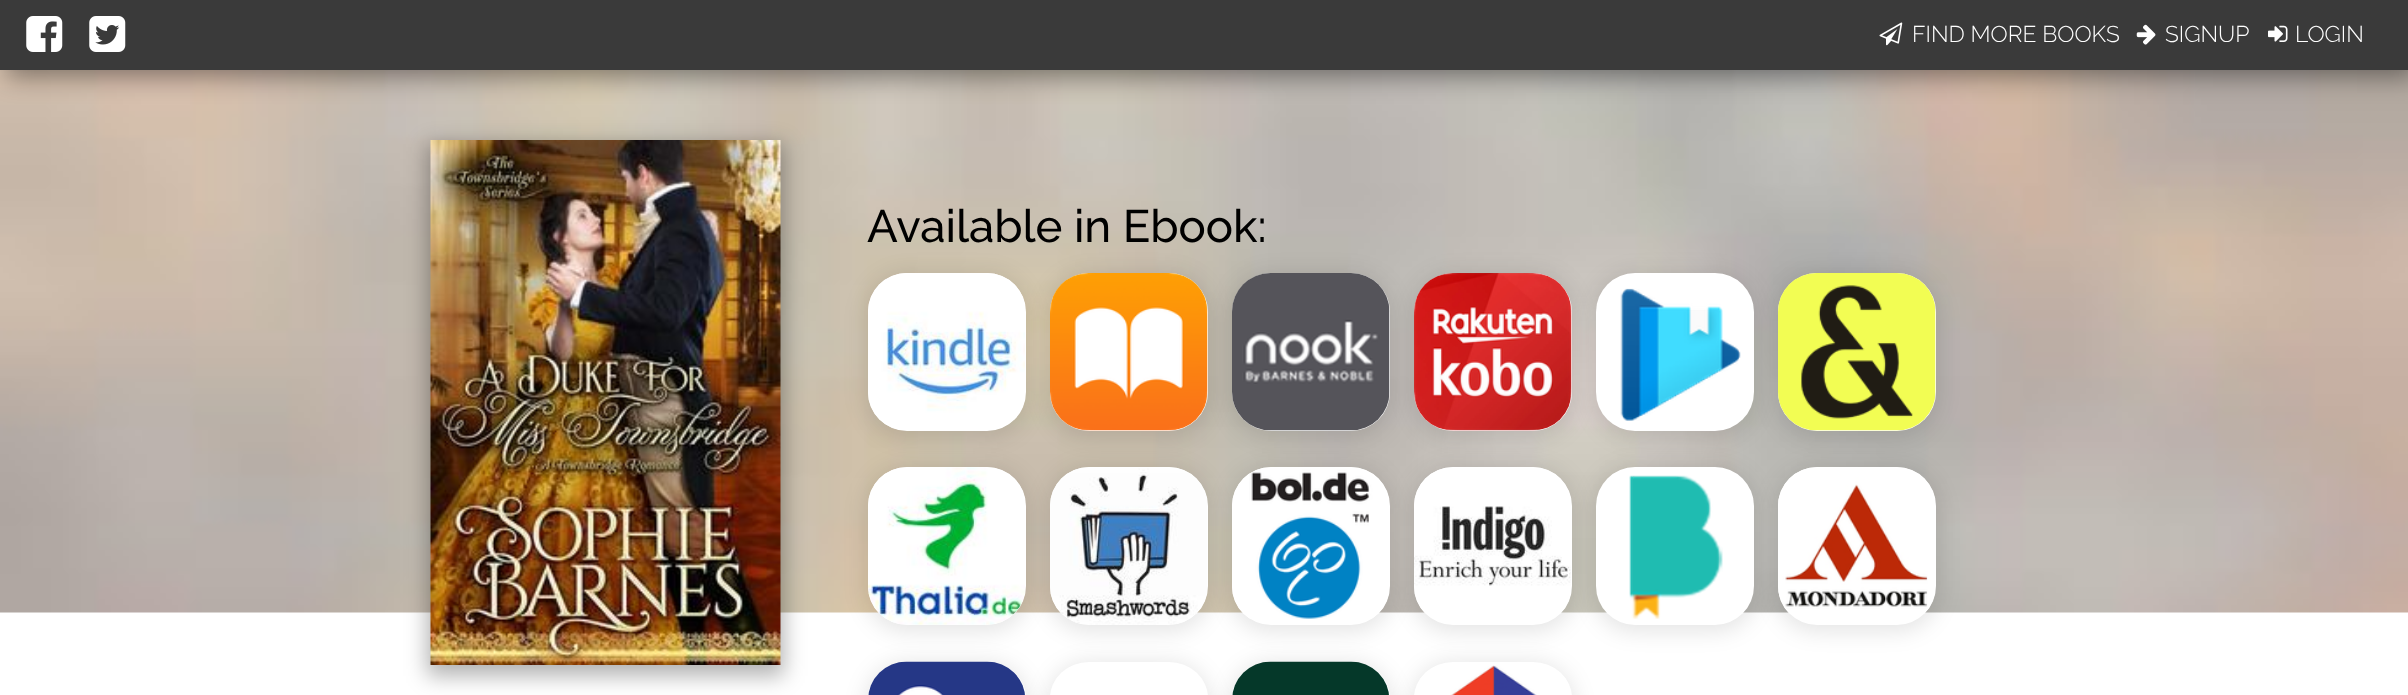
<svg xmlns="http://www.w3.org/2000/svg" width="2408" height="695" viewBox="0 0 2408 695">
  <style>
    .t1 { font: 300 22.75px Raleway; fill: #fff; }
    .t2 { font: 500 45.5px Raleway; fill: #000; }
  </style>
  <rect width="100%" height="100%" fill="#fff"/>
  <image x="0" y="70" width="2408" height="543" href="images/1.png"/>
  <rect x="7" y="7" width="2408" height="70" fill="#00000066" filter="blur(12px)"/>
  <rect x="0" y="0" width="2408" height="70" fill="#3a3a3a"/>
  <image x="26" y="16" width="37" height="36" href="images/2.png"/>
  <image x="89" y="16" width="37" height="36" href="images/3.png"/>
  <image x="1879" y="22" width="24" height="24" href="images/4.png"/>
  <text x="1912" y="42" class="t1">FIND MORE BOOKS</text>
  <image x="2136" y="24" width="20" height="21" href="images/5.png"/>
  <text x="2165" y="42" class="t1">SIGNUP</text>
  <image x="2268" y="25" width="20" height="17" href="images/6.png"/>
  <text x="2295" y="42" class="t1">LOGIN</text>
  <rect x="427" y="144" width="357" height="532" fill="#0000004d" filter="blur(10.5px)"/>
  <image x="430" y="140" width="351" height="525" href="images/7.png"/>
  <rect x="865" y="273" width="164" height="165" rx="42" fill="#0000001a" filter="blur(10.5px)"/>
  <rect x="868" y="273" width="158" height="158" rx="39" fill="#fff"/>
  <image x="868" y="273" width="157" height="157" href="images/8.png"/>
  <rect x="1047" y="273" width="164" height="165" rx="42" fill="#0000001a" filter="blur(10.5px)"/>
  <rect x="1050" y="273" width="158" height="158" rx="39" fill="#fff"/>
  <image x="1050" y="273" width="158" height="158" href="images/9.png"/>
  <rect x="1229" y="273" width="164" height="165" rx="42" fill="#0000001a" filter="blur(10.5px)"/>
  <text x="867" y="242" class="t2">Available in Ebook:</text>
  <rect x="1232" y="273" width="158" height="158" rx="39" fill="#fff"/>
  <image x="1232" y="273" width="158" height="158" href="images/10.png"/>
  <rect x="1411" y="273" width="164" height="165" rx="42" fill="#0000001a" filter="blur(10.5px)"/>
  <rect x="1414" y="273" width="158" height="158" rx="39" fill="#fff"/>
  <image x="1414" y="273" width="158" height="158" href="images/11.png"/>
  <rect x="1593" y="273" width="164" height="165" rx="42" fill="#0000001a" filter="blur(10.5px)"/>
  <rect x="1596" y="273" width="158" height="158" rx="39" fill="#fff"/>
  <rect x="1775" y="273" width="164" height="165" rx="42" fill="#0000001a" filter="blur(10.5px)"/>
  <rect x="1778" y="273" width="158" height="158" rx="39" fill="#fff"/>
  <image x="1620" y="288" width="121" height="133" href="images/12.png"/>
  <image x="1778" y="273" width="158" height="158" href="images/13.png"/>
  <rect x="865" y="467" width="164" height="165" rx="42" fill="#0000001a" filter="blur(10.5px)"/>
  <rect x="868" y="467" width="158" height="158" rx="39" fill="#fff"/>
  <image x="868" y="467" width="157" height="158" href="images/14.png"/>
  <rect x="1047" y="467" width="164" height="165" rx="42" fill="#0000001a" filter="blur(10.5px)"/>
  <rect x="1050" y="467" width="158" height="158" rx="39" fill="#fff"/>
  <image x="1050" y="467" width="157" height="158" href="images/15.png"/>
  <rect x="1229" y="467" width="164" height="165" rx="42" fill="#0000001a" filter="blur(10.5px)"/>
  <rect x="1232" y="467" width="158" height="158" rx="39" fill="#fff"/>
  <image x="1232" y="467" width="157" height="152" href="images/16.png"/>
  <rect x="1411" y="467" width="164" height="165" rx="42" fill="#0000001a" filter="blur(10.5px)"/>
  <rect x="1414" y="467" width="158" height="158" rx="39" fill="#fff"/>
  <image x="1414" y="467" width="157" height="146" href="images/17.png"/>
  <rect x="1593" y="467" width="164" height="165" rx="42" fill="#0000001a" filter="blur(10.5px)"/>
  <rect x="1596" y="467" width="158" height="158" rx="39" fill="#fff"/>
  <rect x="1775" y="467" width="164" height="165" rx="42" fill="#0000001a" filter="blur(10.5px)"/>
  <rect x="1778" y="467" width="158" height="158" rx="39" fill="#fff"/>
  <image x="1629" y="475" width="94" height="144" href="images/18.png"/>
  <image x="1778" y="467" width="157" height="146" href="images/19.png"/>
  <rect x="865" y="662" width="164" height="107" rx="42" fill="#0000001a" filter="blur(10.5px)"/>
  <rect x="868" y="662" width="158" height="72" rx="39" fill="#fff"/>
  <image x="868" y="661" width="157" height="34" href="images/20.png"/>
  <rect x="1047" y="662" width="164" height="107" rx="42" fill="#0000001a" filter="blur(10.5px)"/>
  <rect x="1050" y="662" width="158" height="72" rx="39" fill="#fff"/>
  <rect x="1229" y="662" width="164" height="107" rx="42" fill="#0000001a" filter="blur(10.5px)"/>
  <rect x="1232" y="662" width="158" height="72" rx="39" fill="#fff"/>
  <image x="1232" y="661" width="157" height="34" href="images/21.png"/>
  <rect x="1411" y="662" width="164" height="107" rx="42" fill="#0000001a" filter="blur(10.5px)"/>
  <rect x="1414" y="662" width="158" height="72" rx="39" fill="#fff"/>
  <image x="1450" y="665" width="87" height="30" href="images/22.png"/>
</svg>
